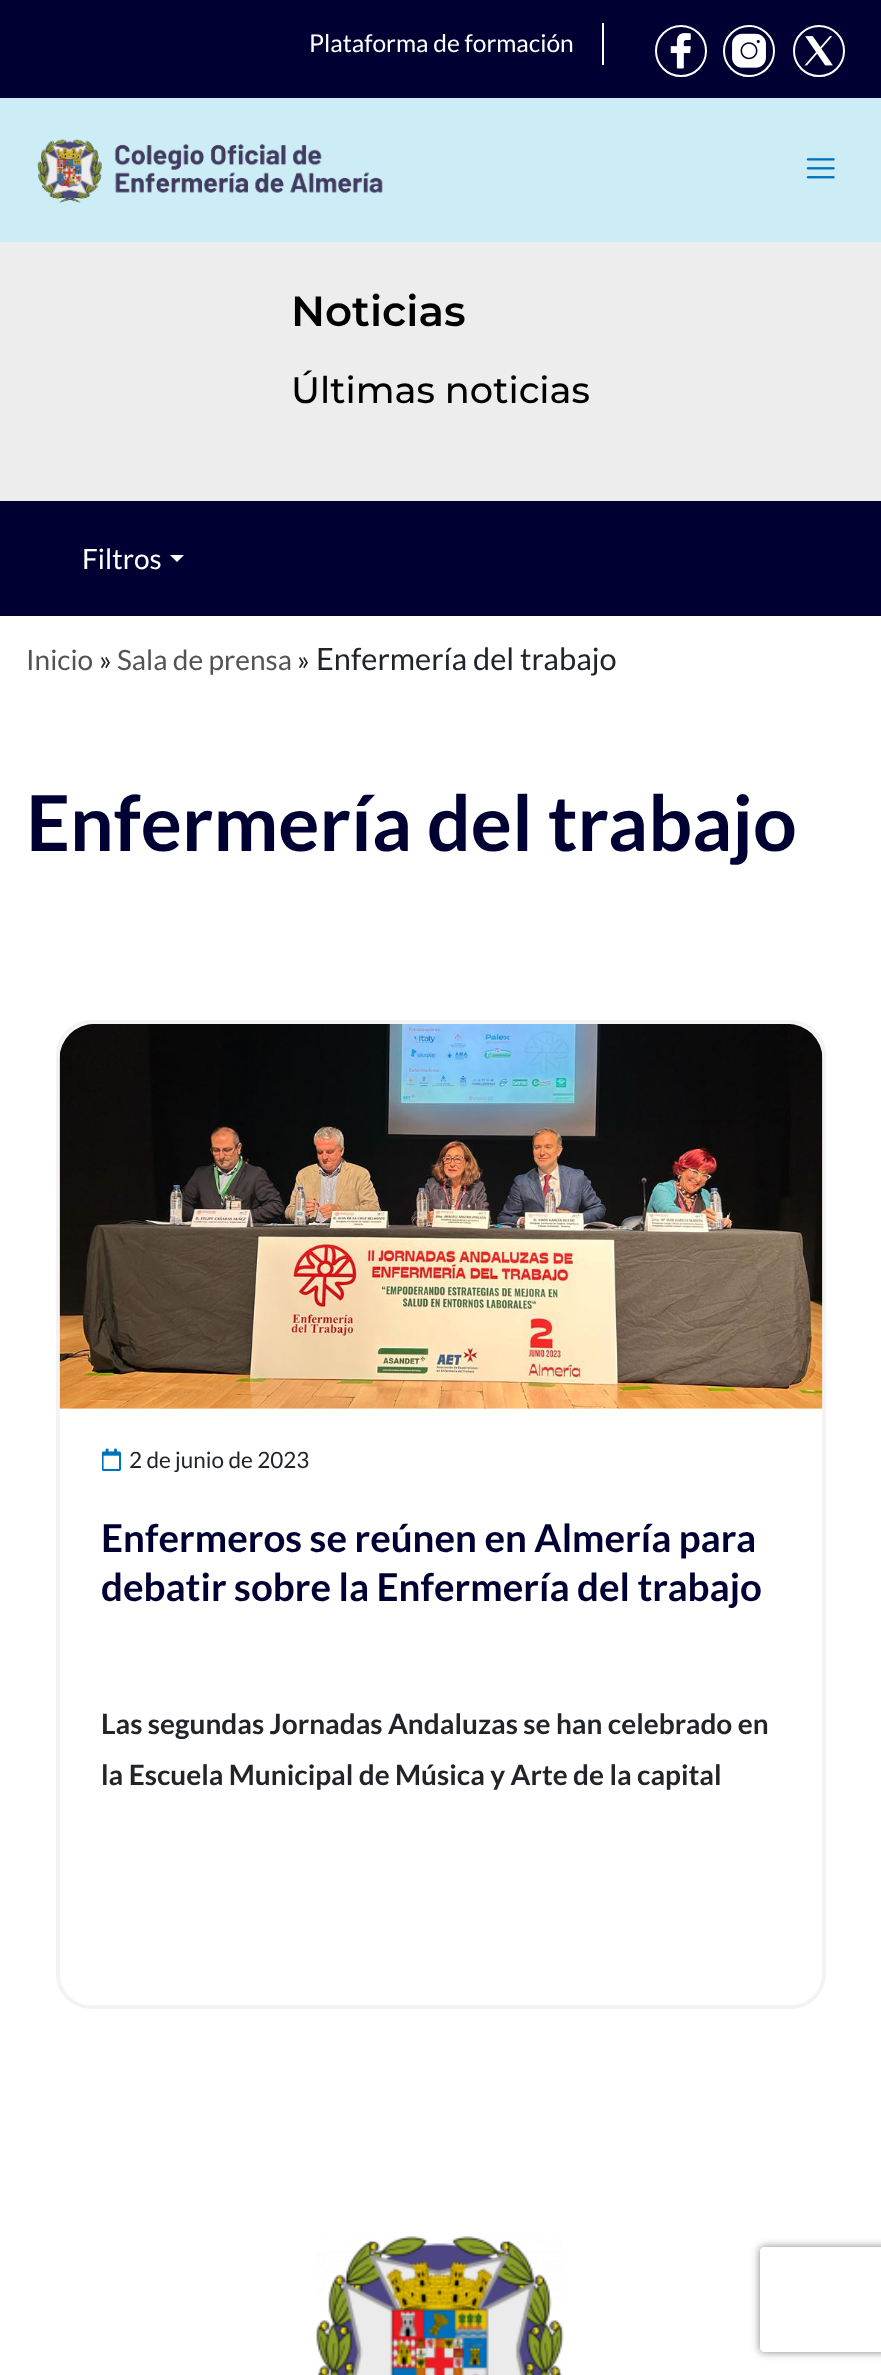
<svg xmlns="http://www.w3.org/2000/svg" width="881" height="2375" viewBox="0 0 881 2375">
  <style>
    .t1 { font: 24.5px Lato; fill: #fff; }
    .t2 { font: 600 42px Montserrat; fill: #000; }
    .t3 { font: 500 36.75px Montserrat; fill: #000; }
    .t4 { font: 28px Lato; fill: #fff; }
    .t5 { font: 28px Lato; fill: #535353; }
    .t6 { font: 28px Lato; fill: #212529; }
    .t7 { font: 30.75px Lato; fill: #212529; }
    .t8 { font: bold 77px Lato; fill: #003; }
    .t9 { font: 22.5px Lato; fill: #212529; }
    .t10 { font: bold 38.5px Lato; fill: #003; }
    .t11 { font: bold 28px Lato; fill: #212529; }
  </style>
  <defs>
    <clipPath id="clip1"><path d="M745 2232H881V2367H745ZM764 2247H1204C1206 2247 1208 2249 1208 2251V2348C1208 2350 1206 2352 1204 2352H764C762 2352 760 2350 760 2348V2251C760 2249 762 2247 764 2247Z" clip-rule="evenodd"/></clipPath>
  </defs>
  <rect width="100%" height="100%" fill="#fff"/>
  <rect x="0" y="0" width="881" height="98" fill="#003"/>
  <rect x="602" y="23" width="2" height="42" fill="#fff"/>
  <text x="309" y="52" class="t1">Plataforma de formación</text>
  <circle cx="681" cy="51" r="25" fill="none" stroke="#fff" stroke-width="2"/>
  <image x="670" y="33" width="21" height="36" href="images/1.png"/>
  <circle cx="749" cy="51" r="25" fill="none" stroke="#fff" stroke-width="2"/>
  <image x="732" y="33" width="34" height="35" href="images/2.png"/>
  <circle cx="819" cy="51" r="25" fill="none" stroke="#fff" stroke-width="2"/>
  <image x="804" y="36" width="29" height="30" href="images/3.png"/>
  <rect x="0" y="98" width="881" height="144" fill="#ccedf5"/>
  <image x="37" y="139" width="346" height="64" href="images/4.png"/>
  <image x="806" y="158" width="29" height="21" href="images/5.png"/>
  <rect x="0" y="242" width="881" height="259" fill="#ededed"/>
  <text x="291" y="326" class="t2">Noticias</text>
  <text x="291" y="403" class="t3">Últimas noticias</text>
  <rect x="0" y="501" width="881" height="115" fill="#003"/>
  <text x="82" y="569" class="t4">Filtros</text>
  <path d="M170 555H184L177 562Z" fill="#fff"/>
  <text x="26" y="670" class="t5">Inicio</text>
  <text x="99" y="670" class="t6">»</text>
  <text x="117" y="670" class="t5">Sala de prensa</text>
  <text x="297" y="670" class="t6">»</text>
  <text x="316" y="670" class="t7">Enfermería del trabajo</text>
  <text x="26" y="851" class="t8">Enfermería del trabajo</text>
  <rect x="58" y="1022" width="766" height="985" rx="33" fill="none" stroke="#f3f3f3" stroke-width="4"/>
  <image x="59" y="1024" width="764" height="385" href="images/6.png"/>
  <image x="102" y="1448" width="20" height="24" href="images/7.png"/>
  <text x="129" y="1468" class="t9">2 de junio de 2023</text>
  <text x="101" y="1552" class="t10">Enfermeros se reúnen en Almería para</text>
  <text x="101" y="1601" class="t10">debatir sobre la Enfermería del trabajo</text>
  <text x="101" y="1734" class="t11">Las segundas Jornadas Andaluzas se han celebrado en</text>
  <text x="101" y="1785" class="t11">la Escuela Municipal de Música y Arte de la capital</text>
  <image x="316" y="2236" width="248" height="139" href="images/8.png"/>
  <g clip-path="url(#clip1)">
    <rect x="760" y="2247" width="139" height="105" rx="4" fill="#808080" filter="blur(4.5px)"/>
  </g>
</svg>
